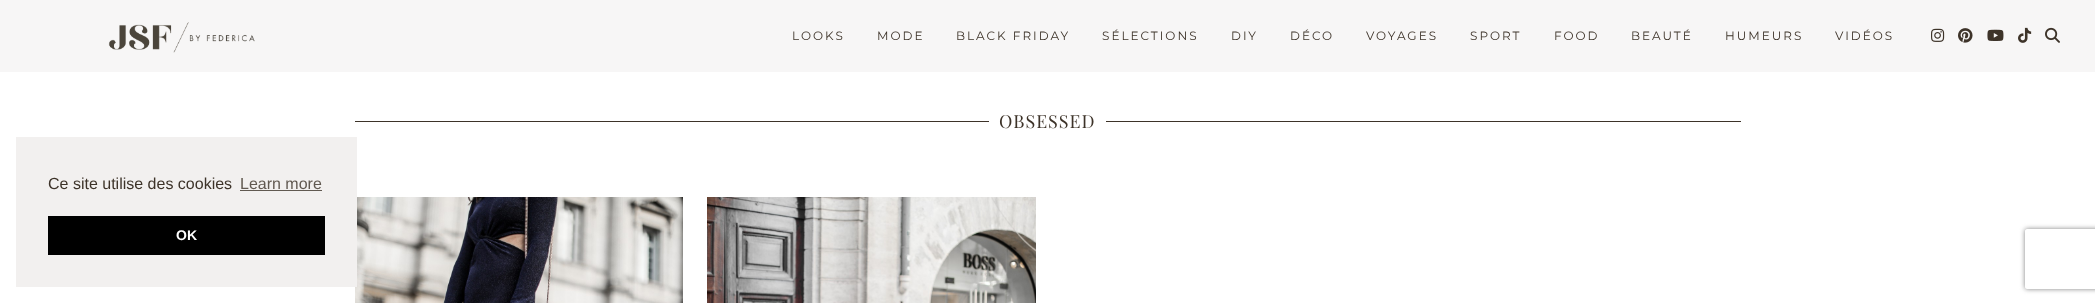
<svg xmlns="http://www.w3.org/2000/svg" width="2095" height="303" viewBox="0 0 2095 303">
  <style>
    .t1 { font: 100 12px Montserrat; letter-spacing: 2px; fill: #3d3329; }
    .t2 { font: 18px Playfair Display; letter-spacing: 1px; fill: #3d3329; }
    .t3 { font: 16px Liberation Sans; fill: #3d3329; }
    .t4 { font: 16px Liberation Sans; fill: #615951; }
    .t5 { font: bold 14px Liberation Sans; fill: #fff; }
  </style>
  <defs>
    <clipPath id="clip1"><path d="M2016 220H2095V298H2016ZM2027 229H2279C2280 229 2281 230 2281 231V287C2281 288 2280 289 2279 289H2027C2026 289 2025 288 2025 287V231C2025 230 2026 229 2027 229Z" clip-rule="evenodd"/></clipPath>
  </defs>
  <rect width="100%" height="100%" fill="#fff"/>
  <rect x="0" y="0" width="2095" height="72" fill="#f7f6f6"/>
  <image x="108" y="22" width="147" height="31" href="images/1.png"/>
  <text x="792" y="40" class="t1">LOOKS</text>
  <text x="877" y="40" class="t1">MODE</text>
  <text x="956" y="40" class="t1">BLACK FRIDAY</text>
  <text x="1102" y="40" class="t1">SÉLECTIONS</text>
  <text x="1231" y="40" class="t1">DIY</text>
  <text x="1290" y="40" class="t1">DÉCO</text>
  <text x="1366" y="40" class="t1">VOYAGES</text>
  <text x="1470" y="40" class="t1">SPORT</text>
  <text x="1554" y="40" class="t1">FOOD</text>
  <text x="1631" y="40" class="t1">BEAUTÉ</text>
  <text x="1725" y="40" class="t1">HUMEURS</text>
  <text x="1835" y="40" class="t1">VIDÉOS</text>
  <image x="1931" y="28" width="14" height="14" href="images/2.png"/>
  <image x="1958" y="28" width="15" height="15" href="images/3.png"/>
  <image x="1987" y="29" width="17" height="12" href="images/4.png"/>
  <image x="2018" y="27" width="14" height="16" href="images/5.png"/>
  <image x="2045" y="27" width="15" height="16" href="images/6.png"/>
  <rect x="355" y="121" width="1386" height="1" fill="#3d3329"/>
  <rect x="989" y="121" width="117" height="1" fill="#fff"/>
  <text x="999" y="128" class="t2">OBSESSED</text>
  <image x="355" y="197" width="328" height="106" href="images/7.png"/>
  <image x="707" y="197" width="329" height="106" href="images/8.png"/>
  <rect x="16" y="137" width="341" height="150" fill="#f2f0ef"/>
  <text x="48" y="189" class="t3">Ce site utilise des cookies</text>
  <text x="240" y="189" class="t4">Learn more</text>
  <rect x="240" y="190" width="82" height="1" fill="#615951"/>
  <rect x="48" y="216" width="277" height="39" fill="#000"/>
  <text x="176" y="240" class="t5">OK</text>
  <g clip-path="url(#clip1)">
    <rect x="2025" y="229" width="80" height="60" rx="2" fill="#808080" filter="blur(2.5px)"/>
  </g>
</svg>
